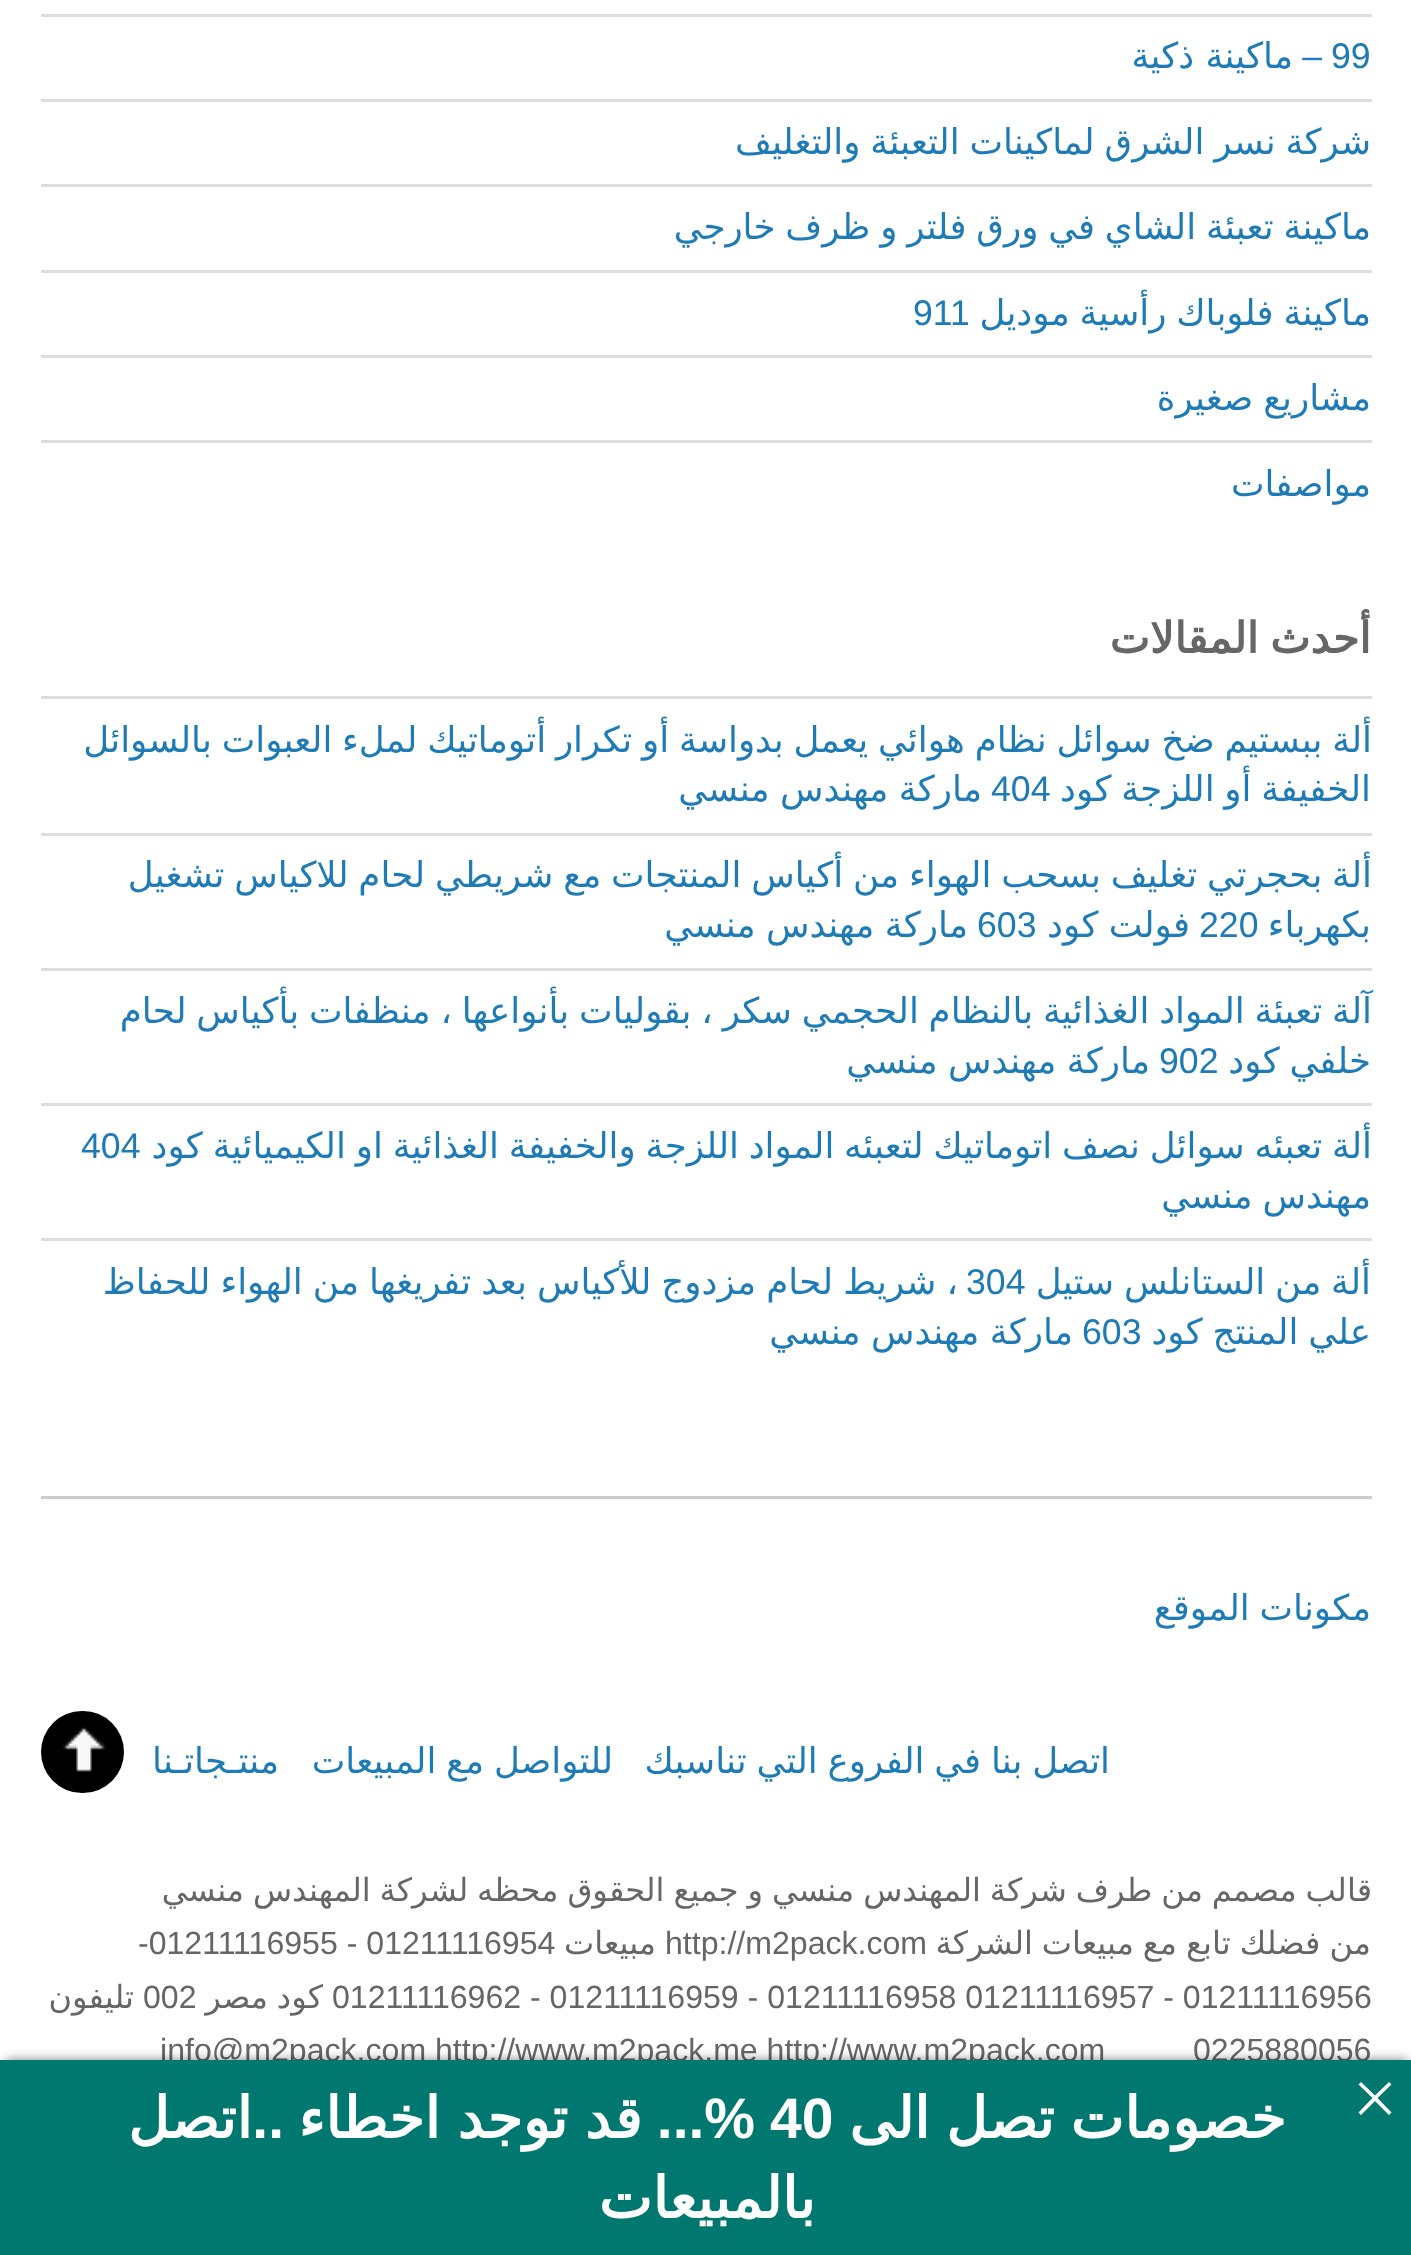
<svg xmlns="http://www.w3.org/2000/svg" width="1411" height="2255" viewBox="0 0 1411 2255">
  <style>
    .t1 { font: 35.65px Liberation Sans; fill: #1f7bb6; }
    .t2 { font: 35.65px Liberation Sans; direction: rtl; fill: #1f7bb6; }
    .t3 { font: 35.65px DejaVu Sans; direction: rtl; fill: #1f7bb6; }
    .t4 { font: bold 42.75px DejaVu Sans; direction: rtl; fill: #666; }
    .t5 { font: 32.1px DejaVu Sans; direction: rtl; fill: #666; }
    .t6 { font: 32.1px Liberation Sans; fill: #666; }
    .t7 { font: bold 57px DejaVu Sans; direction: rtl; fill: #fff; }
    .t8 { font: bold 57px Liberation Sans; fill: #fff; }
    .t9 { font: bold 57px Liberation Sans; direction: rtl; fill: #fff; }
  </style>
  <rect width="100%" height="100%" fill="#fff"/>
  <rect x="41" y="14" width="1331" height="3" fill="#ddd"/>
  <text x="1331" y="68" class="t1">99</text>
  <text x="1322" y="68" class="t2">–</text>
  <text x="1293" y="68" class="t3">ماكينة ذكية</text>
  <rect x="41" y="99" width="1331" height="3" fill="#ddd"/>
  <text x="1371" y="154" word-spacing="-1.5" class="t3">شركة نسر الشرق لماكينات التعبئة والتغليف</text>
  <rect x="41" y="184" width="1331" height="3" fill="#ddd"/>
  <text x="1371" y="239" word-spacing="-1.5" class="t3">ماكينة تعبئة الشاي في ورق فلتر و ظرف خارجي</text>
  <rect x="41" y="270" width="1331" height="3" fill="#ddd"/>
  <text x="1371" y="325" word-spacing="-1.5" class="t3">ماكينة فلوباك رأسية موديل</text>
  <text x="913" y="325" class="t1">911</text>
  <rect x="41" y="355" width="1331" height="3" fill="#ddd"/>
  <text x="1371" y="410" word-spacing="-1.5" class="t3">مشاريع صغيرة</text>
  <rect x="41" y="440" width="1331" height="3" fill="#ddd"/>
  <text x="1371" y="496" class="t3">مواصفات</text>
  <text x="1371" y="653" word-spacing="-2" class="t4">أحدث المقالات</text>
  <rect x="41" y="696" width="1331" height="3" fill="#ddd"/>
  <text x="1372" y="752" word-spacing="-1.5" class="t3">ألة ببستيم ضخ سوائل نظام هوائي يعمل بدواسة أو تكرار أتوماتيك لملء العبوات بالسوائل</text>
  <text x="1371" y="801" word-spacing="-1.5" class="t3">الخفيفة أو اللزجة كود</text>
  <text x="991" y="801" class="t1">404</text>
  <text x="982" y="801" word-spacing="-1" class="t3">ماركة مهندس منسي</text>
  <rect x="41" y="833" width="1331" height="3" fill="#ddd"/>
  <text x="1372" y="887" word-spacing="-1.5" class="t3">ألة بحجرتي تغليف بسحب الهواء من أكياس المنتجات مع شريطي لحام للاكياس تشغيل</text>
  <text x="1371" y="937" class="t3">بكهرباء</text>
  <text x="1199" y="937" class="t1">220</text>
  <text x="1190" y="937" word-spacing="-1" class="t3">فولت كود</text>
  <text x="977" y="937" class="t1">603</text>
  <text x="968" y="937" word-spacing="-1" class="t3">ماركة مهندس منسي</text>
  <rect x="41" y="968" width="1331" height="3" fill="#ddd"/>
  <text x="1372" y="1023" word-spacing="-1.5" class="t3">آلة تعبئة المواد الغذائية بالنظام الحجمي سكر ، بقوليات بأنواعها ، منظفات بأكياس لحام</text>
  <text x="1371" y="1073" word-spacing="-1.5" class="t3">خلفي كود</text>
  <text x="1159" y="1073" class="t1">902</text>
  <text x="1150" y="1073" word-spacing="-1" class="t3">ماركة مهندس منسي</text>
  <rect x="41" y="1103" width="1331" height="3" fill="#ddd"/>
  <text x="1372" y="1158" word-spacing="-1.5" class="t3">ألة تعبئه سوائل نصف اتوماتيك لتعبئه المواد اللزجة والخفيفة الغذائية او الكيميائية كود</text>
  <text x="81" y="1158" class="t1">404</text>
  <text x="1371" y="1208" word-spacing="-1.5" class="t3">مهندس منسي</text>
  <rect x="41" y="1238" width="1331" height="3" fill="#ddd"/>
  <text x="1371" y="1294" word-spacing="-1.5" class="t3">ألة من الستانلس ستيل</text>
  <text x="958" y="1294" word-spacing="-1.25" class="t3">، شريط لحام مزدوج للأكياس بعد تفريغها من الهواء للحفاظ</text>
  <text x="966" y="1294" class="t1">304</text>
  <text x="1371" y="1344" word-spacing="-1.5" class="t3">علي المنتج كود</text>
  <text x="1082" y="1344" class="t1">603</text>
  <text x="1073" y="1344" word-spacing="-1" class="t3">ماركة مهندس منسي</text>
  <rect x="41" y="1496" width="1331" height="3" fill="#ccc"/>
  <text x="1371" y="1620" word-spacing="-1.5" class="t3">مكونات الموقع</text>
  <text x="1110" y="1773" word-spacing="-1.5" class="t3">اتصل بنا في الفروع التي تناسبك</text>
  <text x="613" y="1773" word-spacing="-1.5" class="t3">للتواصل مع المبيعات</text>
  <text x="279" y="1773" class="t3">منتـجاتـنا</text>
  <rect x="41" y="1711" width="83" height="82" rx="41" fill="#000"/>
  <image x="63" y="1726" width="42" height="46" href="images/1.png"/>
  <text x="1372" y="1901" word-spacing="-1.25" class="t5">قالب مصمم من طرف شركة المهندس منسي و جميع الحقوق محظه لشركة المهندس منسي</text>
  <text x="1371" y="1954" word-spacing="-1.25" class="t5">من فضلك تابع مع مبيعات الشركة</text>
  <text x="665" y="1954" class="t6">http://m2pack.com</text>
  <text x="656" y="1954" class="t5">مبيعات</text>
  <text x="138" y="1954" class="t6">-01211116955 - 01211116954</text>
  <text x="332" y="2008" class="t6">01211116962 - 01211116959 - 01211116958 01211116957 - 01211116956</text>
  <text x="323" y="2008" word-spacing="-1.25" class="t5">كود مصر</text>
  <text x="143" y="2008" class="t6">002</text>
  <text x="134" y="2008" class="t5">تليفون</text>
  <text x="1193" y="2061" class="t6">0225880056</text>
  <text x="160" y="2061" class="t6">info@m2pack.com http://www.m2pack.me http://www.m2pack.com</text>
  <rect x="6" y="2060" width="1402" height="184" fill="#00000080" filter="blur(5.5px)"/>
  <rect x="0" y="2060" width="1411" height="195" fill="#00776f"/>
  <path d="M1361 2082L1358.5 2084.5L1372.5 2098L1358.5 2112.5L1361 2115L1375 2101L1389 2115L1391.5 2112.5L1377.5 2098L1391.5 2084.5L1389 2082L1375 2095.5Z" fill="#fff"/>
  <text x="1286" y="2138" word-spacing="-2" class="t7">خصومات تصل الى</text>
  <text x="770" y="2138" class="t8">40</text>
  <text x="755" y="2138" class="t9">%...</text>
  <text x="642" y="2138" word-spacing="-1" class="t7">قد توجد اخطاء</text>
  <text x="284" y="2138" class="t9">..</text>
  <text x="252" y="2138" class="t7">اتصل</text>
  <text x="815" y="2218" class="t7">بالمبيعات</text>
</svg>
